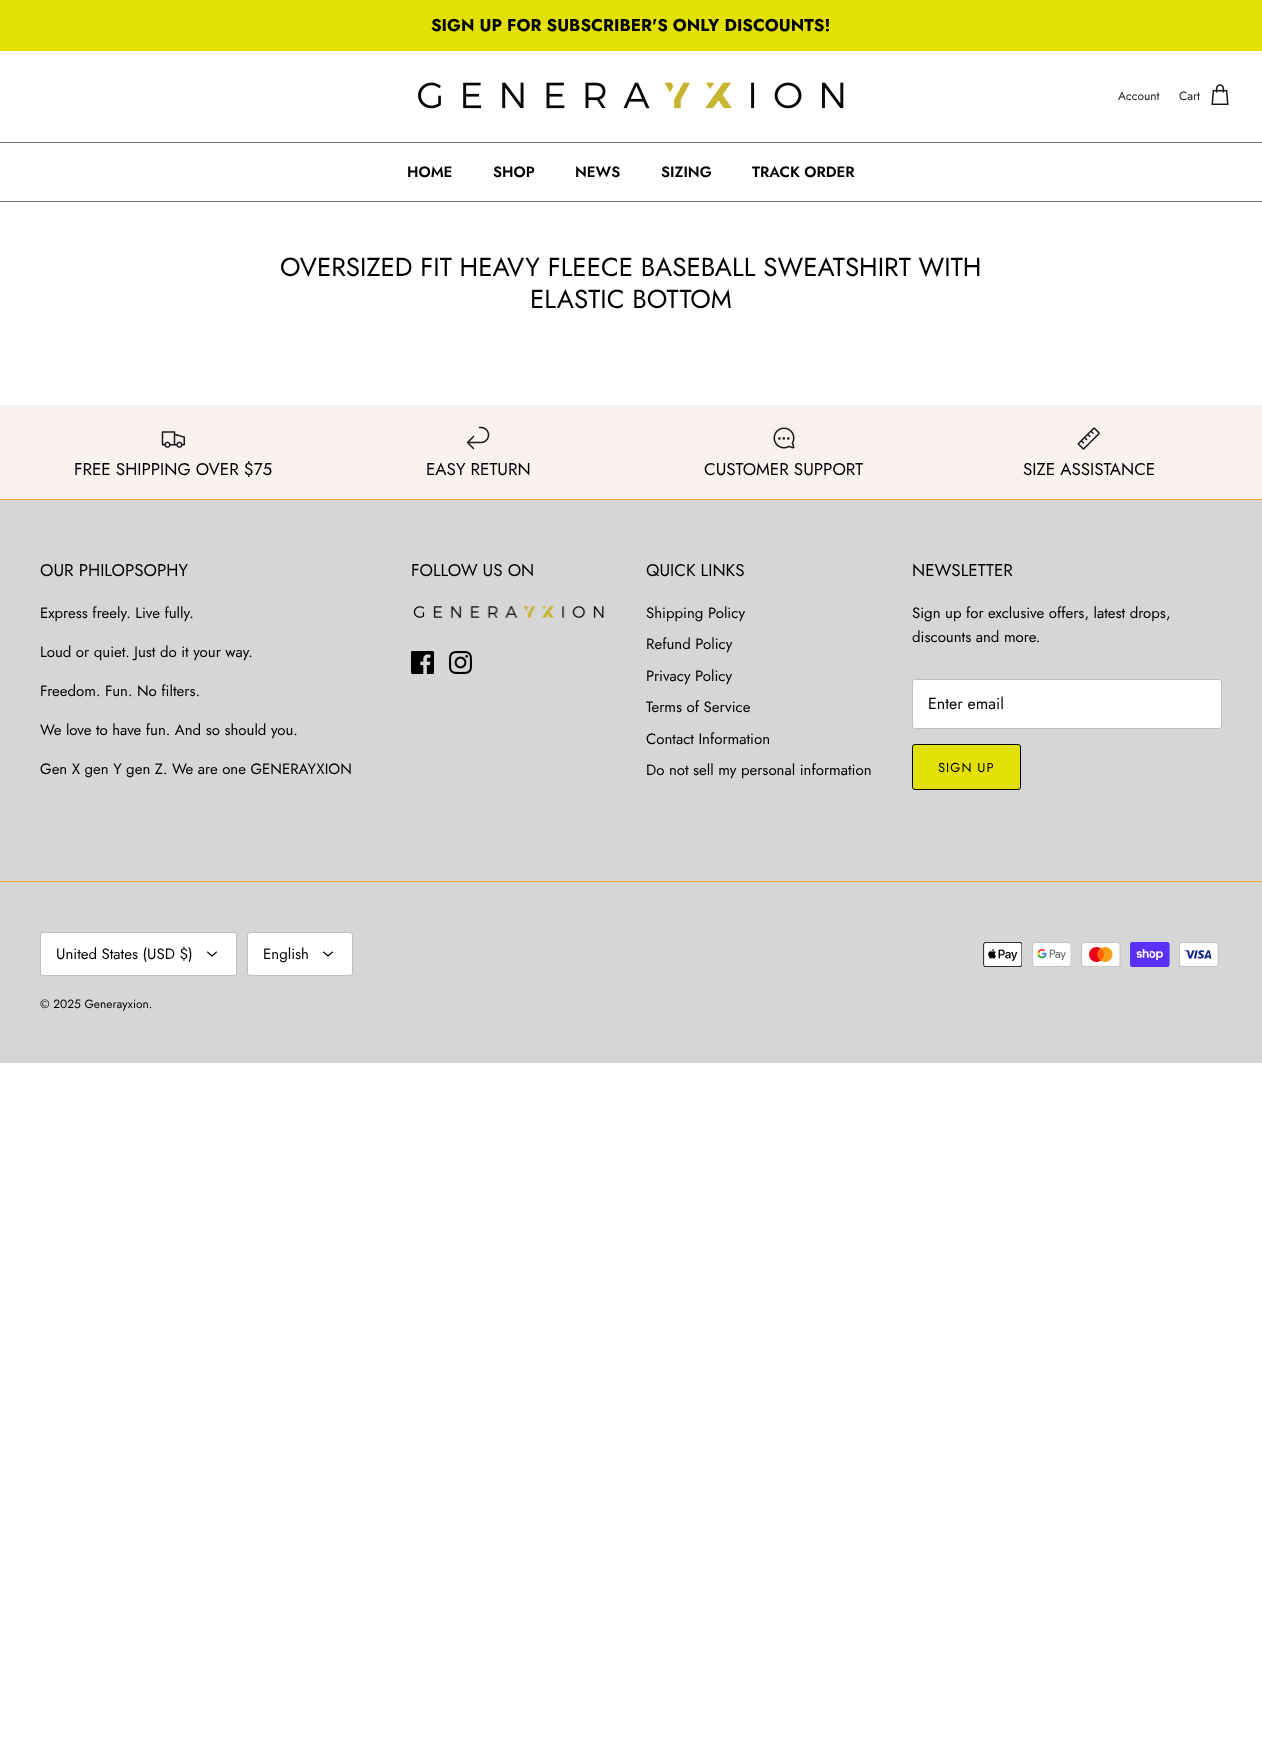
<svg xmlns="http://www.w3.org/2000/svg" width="1262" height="1761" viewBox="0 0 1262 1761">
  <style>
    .t1 { font: bold 17px Jost; fill: #000; }
    .t2 { font: 12px Jost; fill: #171717; }
    .t3 { font: 600 15px Jost; fill: #000; }
    .t4 { font: 26px Jost; fill: #000; }
    .t5 { font: 17px Jost; fill: #000; }
    .t6 { font: 15px Jost; fill: #000; }
    .t7 { font: 16px Jost; fill: #000; }
    .t8 { font: 13px Jost; letter-spacing: 1px; fill: #000; }
    .t9 { font: 12px Jost; fill: #000; }
  </style>
  <rect width="100%" height="100%" fill="#fff"/>
  <rect x="0" y="0" width="1262" height="51" fill="#e3e005"/>
  <text x="431" y="31" class="t1">SIGN UP FOR SUBSCRIBER'S ONLY DISCOUNTS!</text>
  <rect x="0" y="142" width="1262" height="1" fill="#707173"/>
  <image x="418" y="82" width="426" height="27" href="images/1.png"/>
  <text x="1118" y="100" class="t2">Account</text>
  <text x="1179" y="100" class="t2">Cart</text>
  <image x="1211" y="84" width="18" height="21" href="images/2.png"/>
  <rect x="0" y="201" width="1262" height="1" fill="#707173"/>
  <text x="407" y="177" class="t3">HOME</text>
  <text x="493" y="177" class="t3">SHOP</text>
  <text x="575" y="177" class="t3">NEWS</text>
  <text x="661" y="177" class="t3">SIZING</text>
  <text x="752" y="177" class="t3">TRACK ORDER</text>
  <text x="280" y="276" class="t4">OVERSIZED FIT HEAVY FLEECE BASEBALL SWEATSHIRT WITH</text>
  <text x="530" y="308" class="t4">ELASTIC BOTTOM</text>
  <rect x="0" y="500" width="1262" height="563" fill="#d6d6d6"/>
  <rect x="0" y="405" width="1262" height="94" fill="#f7f1f0"/>
  <image x="161" y="431" width="24" height="17" href="images/3.png"/>
  <text x="74" y="475" class="t5">FREE SHIPPING OVER $75</text>
  <image x="466" y="426" width="24" height="24" href="images/4.png"/>
  <text x="426" y="475" class="t5">EASY RETURN</text>
  <image x="773" y="427" width="22" height="22" href="images/5.png"/>
  <text x="704" y="475" class="t5">CUSTOMER SUPPORT</text>
  <image x="1077" y="427" width="23" height="23" href="images/6.png"/>
  <text x="1023" y="475" class="t5">SIZE ASSISTANCE</text>
  <rect x="0" y="499" width="1262" height="1" fill="#f6a529"/>
  <text x="40" y="576" class="t5">OUR PHILOPSOPHY</text>
  <text x="40" y="618" class="t6">Express freely. Live fully.</text>
  <text x="40" y="657" class="t6">Loud or quiet. Just do it your way.</text>
  <text x="40" y="696" class="t6">Freedom. Fun. No filters.</text>
  <text x="40" y="735" class="t6">We love to have fun. And so should you.</text>
  <text x="40" y="774" class="t6">Gen X gen Y gen Z. We are one GENERAYXION</text>
  <text x="411" y="576" class="t5">FOLLOW US ON</text>
  <image x="413" y="606" width="192" height="12" href="images/7.png"/>
  <image x="411" y="651" width="23" height="23" href="images/8.png"/>
  <image x="449" y="651" width="23" height="23" href="images/9.png"/>
  <text x="646" y="576" class="t5">QUICK LINKS</text>
  <text x="646" y="618" class="t6">Shipping Policy</text>
  <text x="646" y="649" class="t6">Refund Policy</text>
  <text x="646" y="681" class="t6">Privacy Policy</text>
  <text x="646" y="712" class="t6">Terms of Service</text>
  <text x="646" y="744" class="t6">Contact Information</text>
  <text x="646" y="775" class="t6">Do not sell my personal information</text>
  <text x="912" y="576" class="t5">NEWSLETTER</text>
  <text x="912" y="618" class="t6">Sign up for exclusive offers, latest drops,</text>
  <text x="912" y="642" class="t6">discounts and more.</text>
  <rect x="912.5" y="679.5" width="309" height="49" rx="2.5" fill="#fff" stroke="#bfbfbf"/>
  <text x="928" y="709" class="t7">Enter email</text>
  <rect x="912.5" y="744.5" width="108" height="45" rx="2.5" fill="#e3e005" stroke="#000"/>
  <text x="938" y="772" class="t8">SIGN UP</text>
  <rect x="0" y="881" width="1262" height="1" fill="#f6a529"/>
  <rect x="40.5" y="932.5" width="196" height="43" rx="2.5" fill="#fff" stroke="#bfbfbf"/>
  <text x="56" y="959" class="t6">United States (USD $)</text>
  <path d="M207.5 952L212 956L216.5 952" fill="none" stroke="#000" stroke-width="1.1" stroke-linecap="round" stroke-linejoin="round"/>
  <rect x="247.5" y="932.5" width="105" height="43" rx="2.5" fill="#fff" stroke="#bfbfbf"/>
  <text x="263" y="959" class="t6">English</text>
  <path d="M323.5 952L328 956L332.5 952" fill="none" stroke="#000" stroke-width="1.1" stroke-linecap="round" stroke-linejoin="round"/>
  <text x="40" y="1008" class="t9">© 2025 Generayxion.</text>
  <image x="983" y="942" width="39" height="25" href="images/10.png"/>
  <image x="1032" y="942" width="39" height="25" href="images/11.png"/>
  <image x="1081" y="942" width="40" height="25" href="images/12.png"/>
  <image x="1130" y="942" width="40" height="25" href="images/13.png"/>
  <image x="1179" y="942" width="40" height="25" href="images/14.png"/>
</svg>
